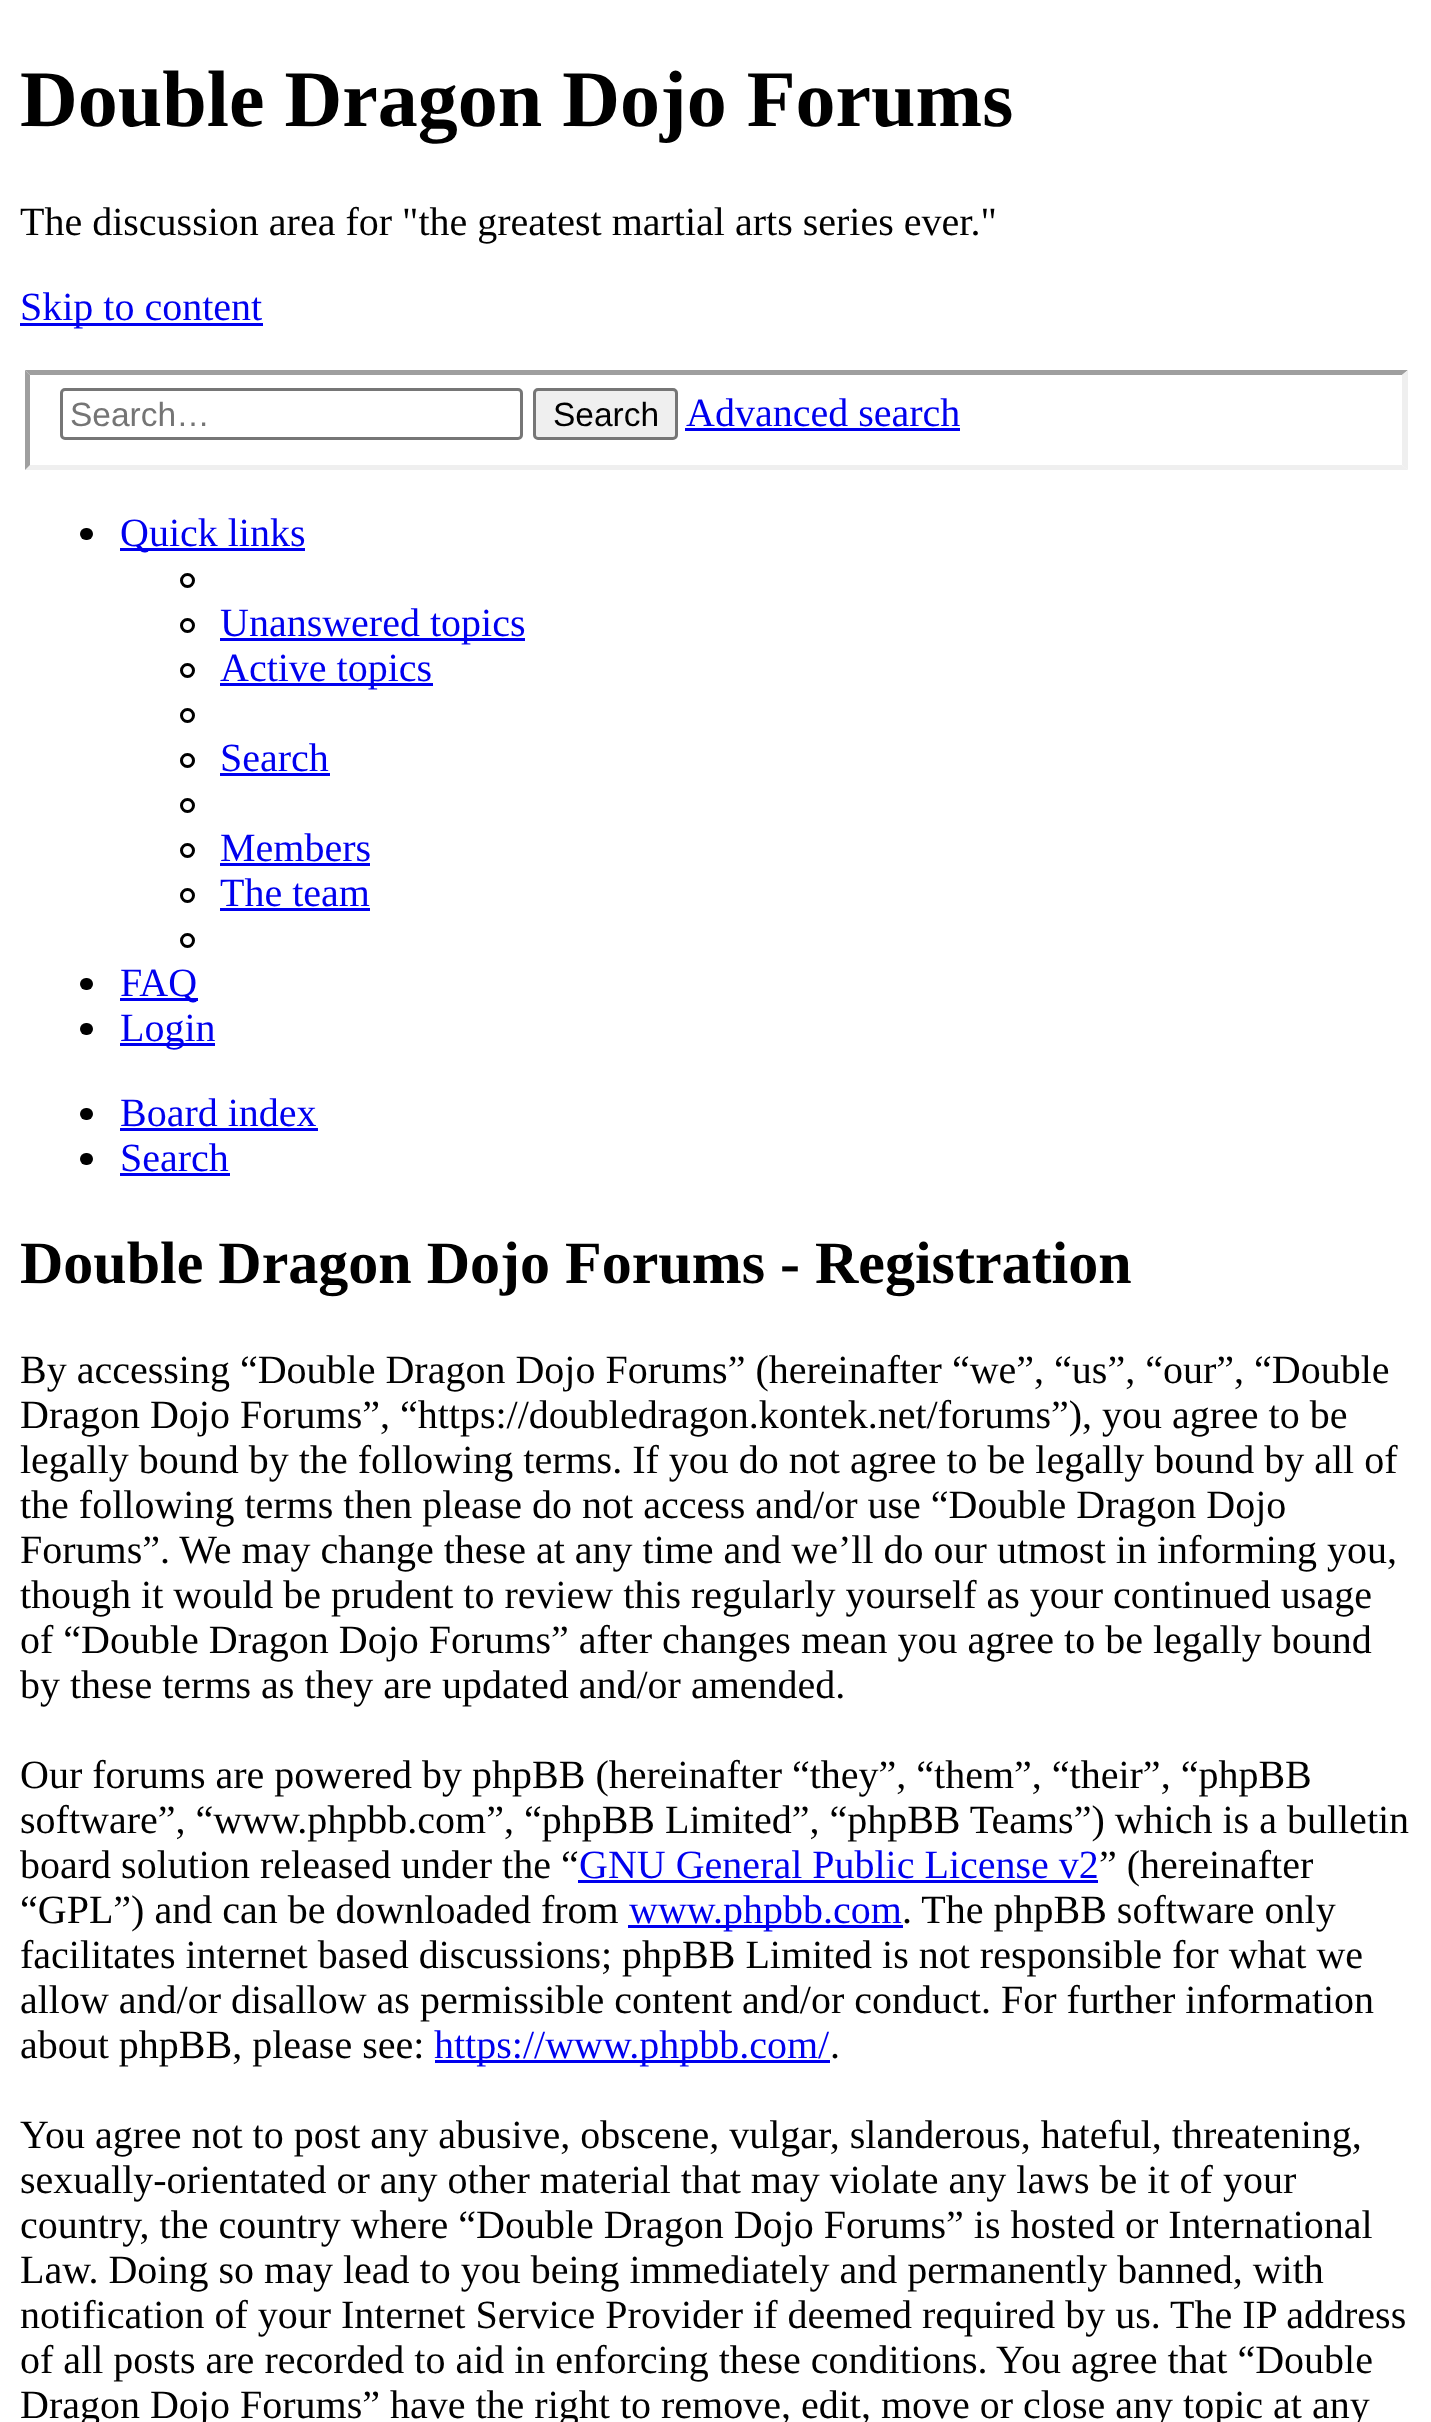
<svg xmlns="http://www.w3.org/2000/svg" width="1431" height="2422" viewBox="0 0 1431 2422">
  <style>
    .t1 { font: bold 80px Liberation Serif; fill: #000; }
    .t2 { font: 40px Liberation Serif; fill: #000; }
    .t3 { font: 40px Liberation Serif; fill: #00e; }
    .t4 { font: 33.5px Liberation Sans; fill: #757575; }
    .t5 { font: 33.5px Liberation Sans; fill: #000; }
    .t6 { font: bold 60px Liberation Serif; fill: #000; }
  </style>
  <rect width="100%" height="100%" fill="#fff"/>
  <text x="20" y="126" class="t1">Double Dragon Dojo Forums</text>
  <text x="20" y="235" class="t2">The discussion area for "the greatest martial arts series ever."</text>
  <rect x="20" y="323" width="243" height="3" fill="#00e"/>
  <text x="20" y="320" class="t3">Skip to content</text>
  <path d="M25 370H1408L1402 375H30Z" fill="#9f9f9f"/>
  <path d="M1408 370V470L1402 465V375Z" fill="#efefef"/>
  <path d="M1408 470H25L30 465H1402Z" fill="#efefef"/>
  <path d="M25 470V370L30 375V465Z" fill="#9f9f9f"/>
  <rect x="61.5" y="389.5" width="460" height="49" rx="3.5" fill="none" stroke="#767676" stroke-width="3"/>
  <text x="70" y="426" class="t4">Search…</text>
  <rect x="534.5" y="389.5" width="142" height="49" rx="3.5" fill="#efefef" stroke="#767676" stroke-width="3"/>
  <text x="553" y="426" class="t5">Search</text>
  <text x="686" y="426" class="t3">Advanced search</text>
  <rect x="685" y="428" width="275" height="3" fill="#00e"/>
  <rect x="80" y="528" width="13" height="12" rx="6" fill="#000"/>
  <rect x="120" y="548" width="185" height="3" fill="#00e"/>
  <text x="120" y="546" class="t3">Quick links</text>
  <circle cx="187.5" cy="580.5" r="6" fill="none" stroke="#000" stroke-width="3"/>
  <circle cx="187.5" cy="625.5" r="6" fill="none" stroke="#000" stroke-width="3"/>
  <rect x="220" y="638" width="305" height="3" fill="#00e"/>
  <text x="220" y="636" class="t3">Unanswered topics</text>
  <circle cx="187.5" cy="670.5" r="6" fill="none" stroke="#000" stroke-width="3"/>
  <rect x="220" y="683" width="213" height="3" fill="#00e"/>
  <text x="220" y="681" class="t3">Active topics</text>
  <circle cx="187.5" cy="715.5" r="6" fill="none" stroke="#000" stroke-width="3"/>
  <circle cx="187.5" cy="760.5" r="6" fill="none" stroke="#000" stroke-width="3"/>
  <text x="220" y="771" class="t3">Search</text>
  <rect x="220" y="773" width="110" height="3" fill="#00e"/>
  <circle cx="187.5" cy="805.5" r="6" fill="none" stroke="#000" stroke-width="3"/>
  <circle cx="187.5" cy="850.5" r="6" fill="none" stroke="#000" stroke-width="3"/>
  <text x="220" y="861" class="t3">Members</text>
  <rect x="220" y="863" width="150" height="3" fill="#00e"/>
  <circle cx="187.5" cy="895.5" r="6" fill="none" stroke="#000" stroke-width="3"/>
  <text x="220" y="906" class="t3">The team</text>
  <rect x="220" y="908" width="150" height="3" fill="#00e"/>
  <circle cx="187.5" cy="940.5" r="6" fill="none" stroke="#000" stroke-width="3"/>
  <rect x="80" y="978" width="13" height="12" rx="6" fill="#000"/>
  <rect x="120" y="998" width="78" height="3" fill="#00e"/>
  <text x="120" y="996" class="t3">FAQ</text>
  <rect x="80" y="1023" width="13" height="12" rx="6" fill="#000"/>
  <rect x="120" y="1043" width="95" height="3" fill="#00e"/>
  <text x="120" y="1041" class="t3">Login</text>
  <rect x="80" y="1108" width="13" height="12" rx="6" fill="#000"/>
  <text x="120" y="1126" class="t3">Board index</text>
  <rect x="120" y="1128" width="198" height="3" fill="#00e"/>
  <rect x="80" y="1153" width="13" height="12" rx="6" fill="#000"/>
  <text x="120" y="1171" class="t3">Search</text>
  <rect x="120" y="1173" width="110" height="3" fill="#00e"/>
  <text x="20" y="1283" class="t6">Double Dragon Dojo Forums - Registration</text>
  <text x="20" y="1383" class="t2">By accessing “Double Dragon Dojo Forums” (hereinafter “we”, “us”, “our”, “Double</text>
  <text x="20" y="1428" class="t2">Dragon Dojo Forums”, “https://doubledragon.kontek.net/forums”), you agree to be</text>
  <text x="20" y="1473" class="t2">legally bound by the following terms. If you do not agree to be legally bound by all of</text>
  <text x="20" y="1518" class="t2">the following terms then please do not access and/or use “Double Dragon Dojo</text>
  <text x="20" y="1563" class="t2">Forums”. We may change these at any time and we’ll do our utmost in informing you,</text>
  <text x="20" y="1608" class="t2">though it would be prudent to review this regularly yourself as your continued usage</text>
  <text x="20" y="1653" class="t2">of “Double Dragon Dojo Forums” after changes mean you agree to be legally bound</text>
  <text x="20" y="1698" class="t2">by these terms as they are updated and/or amended.</text>
  <text x="20" y="1788" class="t2">Our forums are powered by phpBB (hereinafter “they”, “them”, “their”, “phpBB</text>
  <text x="20" y="1833" class="t2">software”, “www.phpbb.com”, “phpBB Limited”, “phpBB Teams”) which is a bulletin</text>
  <text x="20" y="1878" class="t2">board solution released under the “</text>
  <text x="579" y="1878" class="t3">GNU General Public License v2</text>
  <rect x="578" y="1880" width="520" height="3" fill="#00e"/>
  <text x="1099" y="1878" class="t2">” (hereinafter</text>
  <text x="20" y="1923" class="t2">“GPL”) and can be downloaded from</text>
  <rect x="628" y="1925" width="275" height="3" fill="#00e"/>
  <text x="629" y="1923" class="t3">www.phpbb.com</text>
  <text x="902" y="1923" class="t2">. The phpBB software only</text>
  <text x="20" y="1968" class="t2">facilitates internet based discussions; phpBB Limited is not responsible for what we</text>
  <text x="20" y="2013" class="t2">allow and/or disallow as permissible content and/or conduct. For further information</text>
  <text x="20" y="2058" class="t2">about phpBB, please see:</text>
  <rect x="435" y="2060" width="395" height="3" fill="#00e"/>
  <text x="434" y="2058" class="t3">https://www.phpbb.com/</text>
  <text x="830" y="2058" class="t2">.</text>
  <text x="20" y="2148" class="t2">You agree not to post any abusive, obscene, vulgar, slanderous, hateful, threatening,</text>
  <text x="20" y="2193" class="t2">sexually-orientated or any other material that may violate any laws be it of your</text>
  <text x="20" y="2238" class="t2">country, the country where “Double Dragon Dojo Forums” is hosted or International</text>
  <text x="20" y="2283" class="t2">Law. Doing so may lead to you being immediately and permanently banned, with</text>
  <text x="20" y="2328" class="t2">notification of your Internet Service Provider if deemed required by us. The IP address</text>
  <text x="20" y="2373" class="t2">of all posts are recorded to aid in enforcing these conditions. You agree that “Double</text>
  <text x="20" y="2418" class="t2">Dragon Dojo Forums” have the right to remove, edit, move or close any topic at any</text>
</svg>
